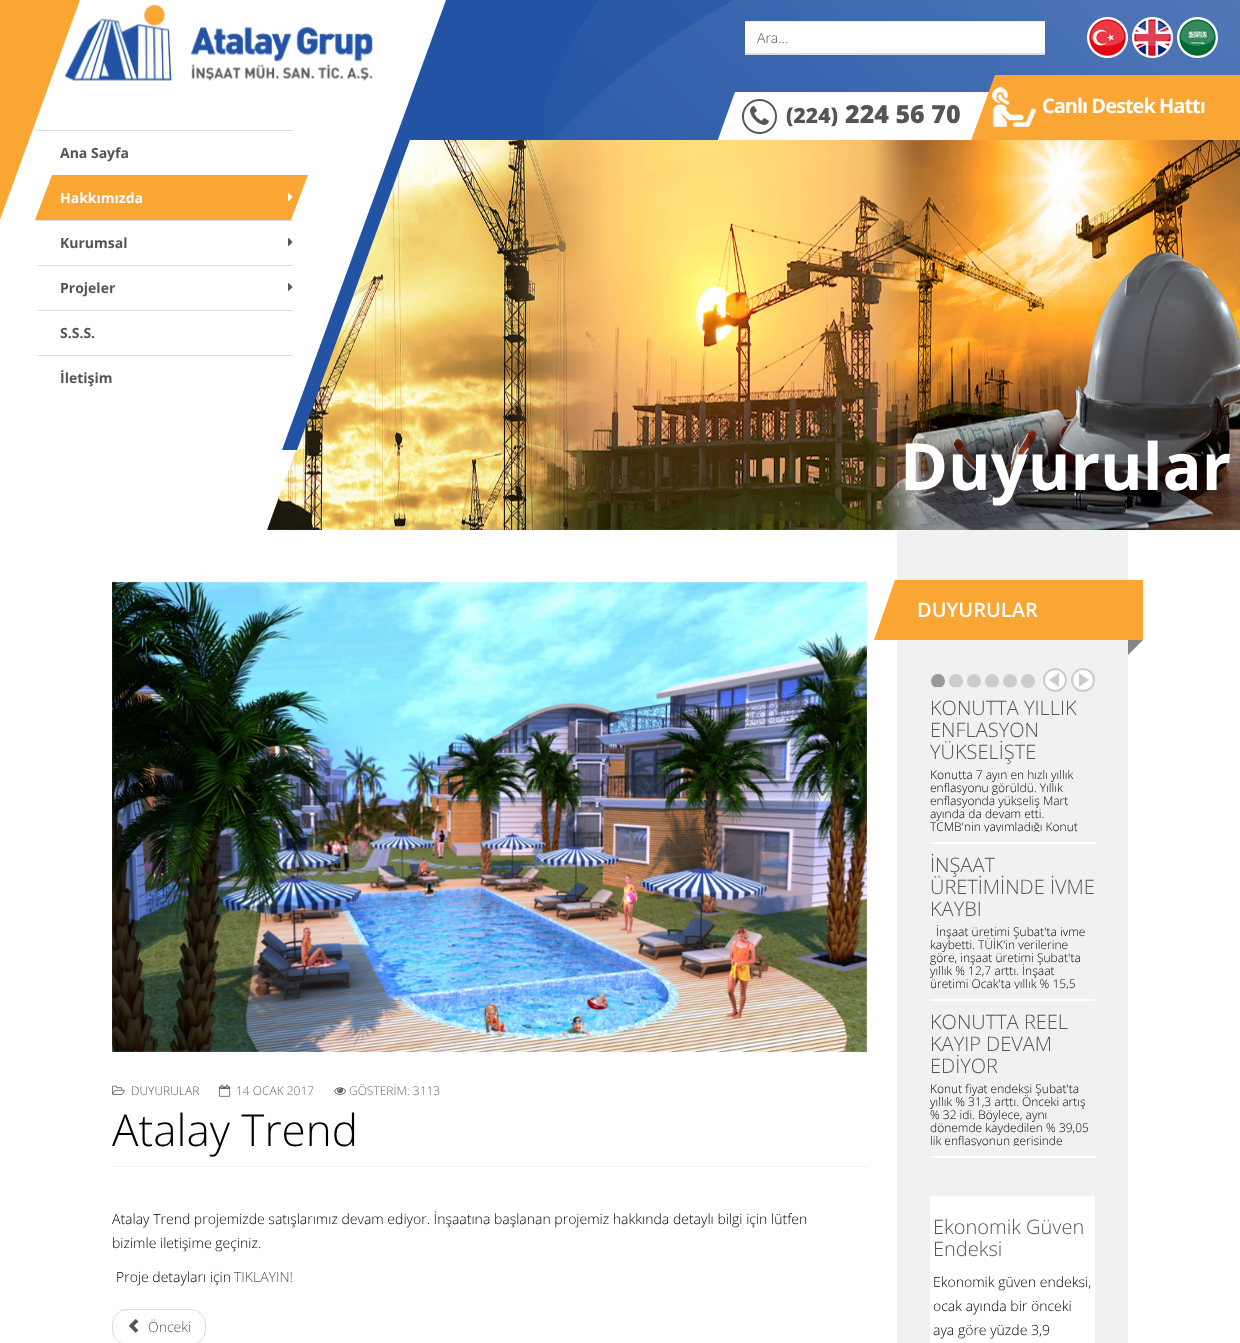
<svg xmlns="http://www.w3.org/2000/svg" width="1240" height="1343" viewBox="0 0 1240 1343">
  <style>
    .t1 { font: 300 14px Open Sans; fill: #555; }
    .t2 { font: 800 21px Open Sans; fill: #555; }
    .t3 { font: 800 25px Open Sans; fill: #555; }
    .t4 { font: bold 20px Open Sans; letter-spacing: -1px; fill: #fff; }
    .t5 { font: bold 14px Open Sans; fill: #555; }
    .t6 { font: bold 14px Open Sans; fill: #fff; }
    .t7 { font: bold 65px Open Sans; fill: #fff; }
    .t8 { font: 300 12px Open Sans; fill: #555; }
    .t9 { font: 300 12px Open Sans; fill: #666; }
    .t10 { font: 300 44px Open Sans; fill: #000; }
    .t11 { font: 300 14px Open Sans; fill: #000; }
    .t12 { font: 600 20px Open Sans; fill: #fff; }
    .t13 { font: 300 20px Open Sans; fill: #555; }
    .t14 { font: 300 12px Open Sans; fill: #000; }
  </style>
  <defs>
    <clipPath id="clip1"><rect x="930" y="697" width="165" height="135"/></clipPath>
    <clipPath id="clip2"><rect x="930" y="854" width="165" height="135"/></clipPath>
    <clipPath id="clip3"><rect x="930" y="1011" width="165" height="135"/></clipPath>
  </defs>
  <rect width="100%" height="100%" fill="#fff"/>
  <rect x="0" y="0" width="80" height="220" fill="#faa635"/>
  <rect x="410" y="0" width="830" height="140" fill="#2253a5"/>
  <image x="545" y="0" width="695" height="140" href="images/1.png"/>
  <rect x="745" y="22" width="300" height="31" fill="#fff"/>
  <rect x="745" y="21" width="300" height="1" fill="#ececec"/>
  <text x="757" y="43" class="t1">Ara...</text>
  <rect x="745" y="53" width="300" height="2" fill="#ddd"/>
  <image x="1087" y="17" width="41" height="41" href="images/2.png"/>
  <image x="1132" y="17" width="41" height="41" href="images/3.png"/>
  <image x="1177" y="17" width="41" height="41" href="images/4.png"/>
  <path d="M735 92H1010L982 170H707Z" fill="#fff"/>
  <image x="742" y="99" width="35" height="35" href="images/5.png"/>
  <text x="786" y="123" class="t2">(224)</text>
  <text x="845" y="123" class="t3">224 56 70</text>
  <path d="M995 75H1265L1232 165H962Z" fill="#faa635"/>
  <image x="992" y="87" width="44" height="40" href="images/6.png"/>
  <text x="1042" y="113" class="t4">Canlı Destek Hattı</text>
  <image x="267" y="140" width="973" height="390" href="images/10.png"/>
  <path d="M80 0H460L267 530H-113Z" fill="#fff"/>
  <path d="M446 0H461L297 450H282Z" fill="#2253a5"/>
  <image x="64" y="4" width="309" height="77" href="images/7.png"/>
  <rect x="37" y="130" width="256" height="1" fill="#ddd"/>
  <text x="60" y="158" class="t5">Ana Sayfa</text>
  <path d="M52 175H308L291 220H35Z" fill="#faa635"/>
  <text x="60" y="203" class="t6">Hakkımızda</text>
  <image x="288" y="193" width="5" height="8" href="images/8.png"/>
  <rect x="37" y="220" width="256" height="1" fill="#ddd"/>
  <text x="60" y="248" class="t5">Kurumsal</text>
  <image x="288" y="238" width="5" height="8" href="images/9.png"/>
  <rect x="37" y="265" width="256" height="1" fill="#ddd"/>
  <text x="60" y="293" class="t5">Projeler</text>
  <image x="288" y="283" width="5" height="8" href="images/9.png"/>
  <rect x="37" y="310" width="256" height="1" fill="#ddd"/>
  <text x="60" y="338" class="t5">S.S.S.</text>
  <rect x="37" y="355" width="256" height="1" fill="#ddd"/>
  <text x="60" y="383" class="t5">İletişim</text>
  <text x="900" y="490" class="t7">Duyurular</text>
  <image x="112" y="581" width="755" height="471" href="images/11.png"/>
  <rect x="112" y="1166" width="755" height="1" fill="#eee"/>
  <image x="112" y="1085" width="13" height="10" href="images/12.png"/>
  <text x="131" y="1095" class="t8">DUYURULAR</text>
  <image x="219" y="1084" width="12" height="13" href="images/13.png"/>
  <text x="236" y="1095" class="t9">14 OCAK 2017</text>
  <image x="334" y="1087" width="12" height="8" href="images/14.png"/>
  <text x="349" y="1095" class="t9">GÖSTERİM: 3113</text>
  <text x="112" y="1146" class="t10">Atalay Trend</text>
  <text x="112" y="1224" class="t11">Atalay Trend projemizde satışlarımız devam ediyor. İnşaatına başlanan projemiz hakkında detaylı bilgi için lütfen</text>
  <text x="112" y="1248" class="t11">bizimle iletişime geçiniz.</text>
  <text x="116" y="1282" class="t11">Proje detayları için</text>
  <text x="234" y="1282" class="t1">TIKLAYIN!</text>
  <rect x="112.5" y="1309.5" width="93" height="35" rx="14.5" fill="none" stroke="#ddd"/>
  <image x="128" y="1319" width="11" height="14" href="images/15.png"/>
  <text x="148" y="1332" class="t1">Önceki</text>
  <rect x="897" y="530" width="231" height="813" fill="#f1f1f1"/>
  <rect x="899" y="580" width="244" height="60" fill="#faa635"/>
  <text x="917" y="617" class="t12">DUYURULAR</text>
  <path d="M895 580H920L899 640H874Z" fill="#faa635"/>
  <path d="M1128 655V640H1143Z" fill="#858585"/>
  <circle cx="938" cy="681" r="7" fill="#999"/>
  <rect x="935" y="687" width="7" height="1" fill="#e8e8e8"/>
  <circle cx="956" cy="681" r="7" fill="#ccc"/>
  <rect x="953" y="687" width="7" height="1" fill="#e8e8e8"/>
  <circle cx="974" cy="681" r="7" fill="#ccc"/>
  <rect x="971" y="687" width="7" height="1" fill="#e8e8e8"/>
  <circle cx="992" cy="681" r="7" fill="#ccc"/>
  <rect x="989" y="687" width="7" height="1" fill="#e8e8e8"/>
  <circle cx="1010" cy="681" r="7" fill="#ccc"/>
  <rect x="1007" y="687" width="7" height="1" fill="#e8e8e8"/>
  <circle cx="1028" cy="681" r="7" fill="#ccc"/>
  <circle cx="1055" cy="680" r="11" fill="#fff" stroke="#ccc" stroke-width="2"/>
  <path d="M1059 673V687L1049 680Z" fill="#ccc"/>
  <circle cx="1083" cy="680" r="11" fill="#fff" stroke="#ccc" stroke-width="2"/>
  <path d="M1079 687V673L1089 680Z" fill="#ccc"/>
  <rect x="930" y="842" width="165" height="2" fill="#fff"/>
  <text x="930" y="715" class="t13">KONUTTA YILLIK</text>
  <text x="930" y="737" class="t13">ENFLASYON</text>
  <text x="930" y="759" class="t13">YÜKSELİŞTE</text>
  <text x="930" y="779" class="t14">Konutta 7 ayın en hızlı yıllık</text>
  <text x="930" y="792" class="t14">enflasyonu görüldü. Yıllık</text>
  <text x="930" y="805" class="t14">enflasyonda yükseliş Mart</text>
  <text x="930" y="818" class="t14">ayında da devam etti.</text>
  <g clip-path="url(#clip1)">
    <text x="930" y="831" class="t14">TCMB'nin yayımladığı Konut</text>
  </g>
  <rect x="930" y="999" width="165" height="2" fill="#fff"/>
  <text x="930" y="872" class="t13">İNŞAAT</text>
  <text x="930" y="894" class="t13">ÜRETİMİNDE İVME</text>
  <text x="930" y="916" class="t13">KAYBI</text>
  <text x="936" y="936" class="t14">İnşaat üretimi Şubat'ta ivme</text>
  <text x="930" y="949" class="t14">kaybetti. TÜİK'in verilerine</text>
  <text x="930" y="962" class="t14">göre, inşaat üretimi Şubat'ta</text>
  <g clip-path="url(#clip2)">
    <text x="930" y="975" class="t14">yıllık % 12,7 arttı. İnşaat</text>
    <text x="930" y="988" class="t14">üretimi Ocak'ta yıllık % 15,5</text>
  </g>
  <rect x="930" y="1156" width="165" height="2" fill="#fff"/>
  <text x="930" y="1029" class="t13">KONUTTA REEL</text>
  <text x="930" y="1051" class="t13">KAYIP DEVAM</text>
  <text x="930" y="1073" class="t13">EDİYOR</text>
  <text x="930" y="1093" class="t14">Konut fiyat endeksi Şubat'ta</text>
  <g clip-path="url(#clip3)">
    <text x="930" y="1106" class="t14">yıllık % 31,3 arttı. Önceki artış</text>
  </g>
  <text x="930" y="1119" class="t14">% 32 idi. Böylece, aynı</text>
  <text x="930" y="1132" class="t14">dönemde kaydedilen % 39,05</text>
  <g clip-path="url(#clip3)">
    <text x="930" y="1145" class="t14">lik enflasyonun gerisinde</text>
  </g>
  <rect x="930" y="1196" width="165" height="147" fill="#fff"/>
  <text x="933" y="1234" class="t13">Ekonomik Güven</text>
  <text x="933" y="1256" class="t13">Endeksi</text>
  <text x="933" y="1287" class="t11">Ekonomik güven endeksi,</text>
  <text x="933" y="1311" class="t11">ocak ayında bir önceki</text>
  <text x="933" y="1335" class="t11">aya göre yüzde 3,9</text>
</svg>
